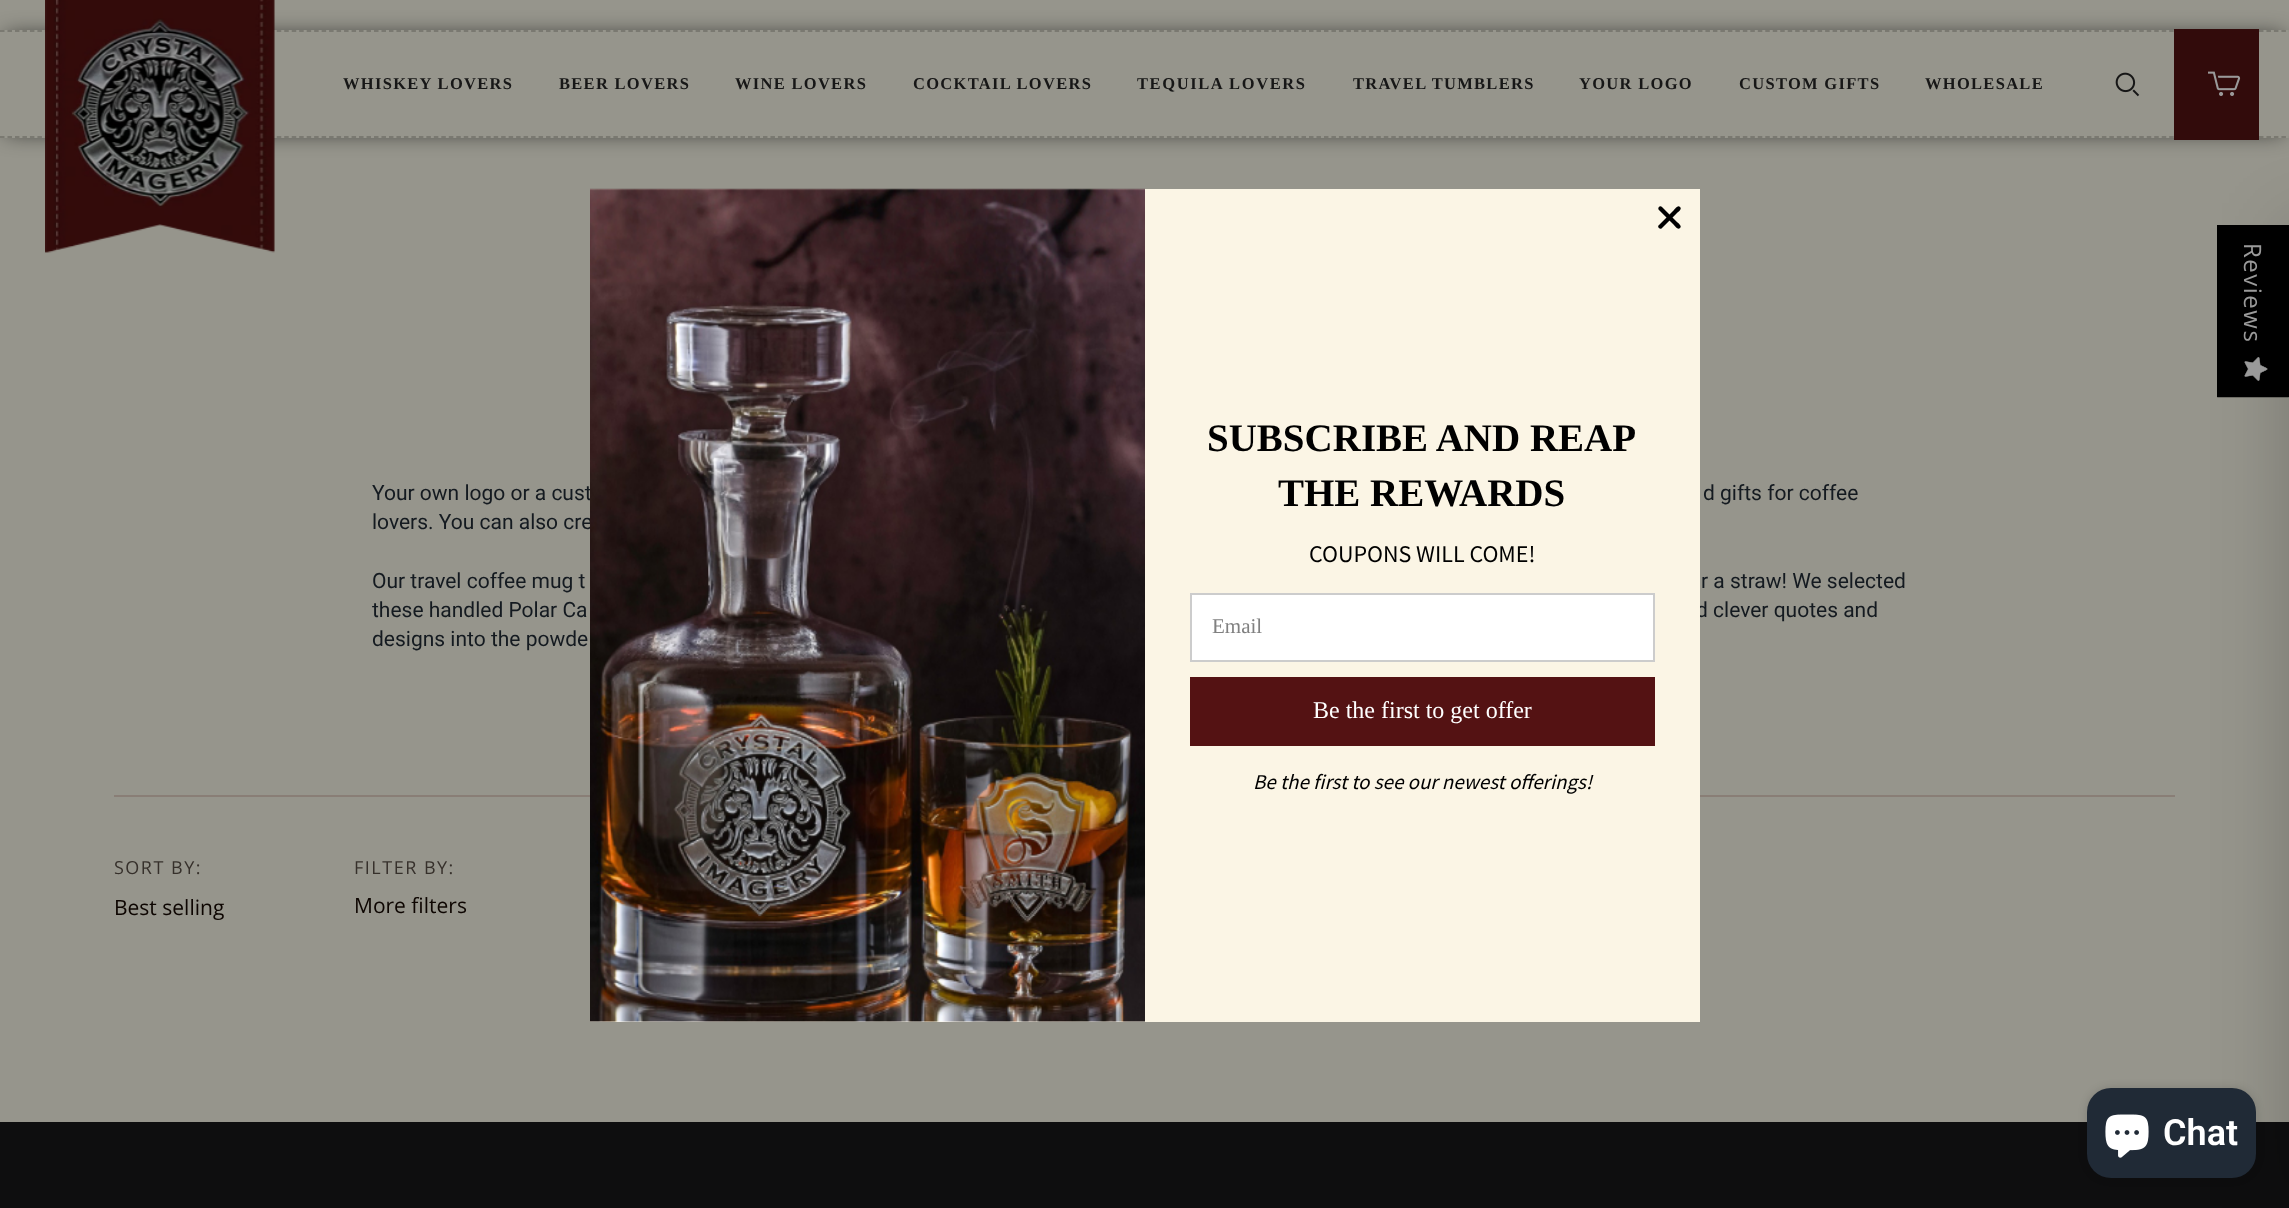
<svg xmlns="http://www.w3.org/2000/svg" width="2289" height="1208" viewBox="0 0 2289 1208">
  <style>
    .t1 { font: bold 16.5px Liberation Serif; letter-spacing: 1.3px; fill: #171717; }
    .t2 { font: bold 16.5px Liberation Serif; letter-spacing: 1.6px; fill: #171717; }
    .t3 { font: 24px Open Sans; letter-spacing: 1.5px; fill: #9a9a9a; }
    .t4 { font: 21px Roboto; fill: #141a20; }
    .t5 { font: bold 39px Liberation Serif; fill: #000; }
    .t6 { font: 24px Source Sans Pro; fill: #000; }
    .t7 { font: 21px Liberation Serif; fill: #808080; }
    .t8 { font: 24px Liberation Serif; fill: #fff; }
    .t9 { font: italic 21px Source Sans Pro; fill: #000; }
    .t10 { font: 18px Open Sans; letter-spacing: 1.5px; fill: #36302b; }
    .t11 { font: 21px Open Sans; fill: #0d0501; }
    .t12 { font: 600 36px Roboto; fill: #fff; }
  </style>
  <defs>
    <clipPath id="clip1"><path d="M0 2H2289V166H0ZM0 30H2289V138H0Z" clip-rule="evenodd"/></clipPath>
  </defs>
  <rect width="100%" height="100%" fill="#96958c"/>
  <g clip-path="url(#clip1)">
    <rect x="6" y="36" width="2277" height="96" fill="#000000bf" filter="blur(11px)"/>
  </g>
  <path d="M0 31H2289" fill="none" stroke="#717068" stroke-width="1.5" stroke-dasharray="4.5 2.98"/>
  <rect x="114" y="795" width="2061" height="2" fill="#897e76"/>
  <rect x="0" y="1122" width="2289" height="86" fill="#0e0e0f"/>
  <rect x="2288" y="228" width="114" height="978" fill="#00000033" filter="blur(37.5px)"/>
  <path d="M0 137H2289" fill="none" stroke="#717068" stroke-width="1.5" stroke-dasharray="4.5 2.98"/>
  <image x="45" y="0" width="230" height="253" href="images/1.png"/>
  <text x="343" y="89" class="t1">WHISKEY LOVERS</text>
  <text x="559" y="89" class="t1">BEER LOVERS</text>
  <text x="735" y="89" class="t1">WINE LOVERS</text>
  <text x="913" y="89" class="t1">COCKTAIL LOVERS</text>
  <text x="1137" y="89" class="t2">TEQUILA LOVERS</text>
  <text x="1353" y="89" class="t1">TRAVEL TUMBLERS</text>
  <text x="1579" y="89" class="t1">YOUR LOGO</text>
  <text x="1739" y="89" class="t1">CUSTOM GIFTS</text>
  <text x="1925" y="89" class="t1">WHOLESALE</text>
  <image x="2115" y="72" width="25" height="25" href="images/2.png"/>
  <rect x="2174" y="29" width="85" height="1" fill="#320b0b"/>
  <rect x="2174" y="30" width="85" height="110" fill="#320b0b"/>
  <image x="2208" y="71" width="33" height="25" href="images/3.png"/>
  <rect x="2217" y="225" width="72" height="172" fill="#000"/>
  <path d="M2288 226V396.5H2218V226Z" fill="none" stroke="#000" stroke-width="1.5"/>
  <text x="2244" y="243" transform="rotate(90 2244 243)" class="t3">Reviews</text>
  <image x="2244" y="357" width="24" height="24" href="images/4.png"/>
  <text x="372" y="500" class="t4">Your own logo or a cust</text>
  <text x="372" y="529" class="t4">lovers. You can also cre</text>
  <text x="1696" y="617" class="t4">d clever quotes and</text>
  <rect x="590" y="189" width="1110" height="833" fill="#fbf5e5"/>
  <path d="M1662 207L1677 222C1678 223 1682.5 226 1680 228C1678 230.5 1675 226 1674 225L1658.5 209.5C1657.5 207 1660.5 205 1662 207Z" fill="#000"/>
  <path d="M1659 225L1674 210C1675 209 1678 204.5 1680 207C1682.5 209 1678 212 1677 213L1661.5 228.5C1659 229.5 1657 226.5 1659 225Z" fill="#000"/>
  <image x="590" y="188" width="555" height="834" href="images/5.png"/>
  <text x="1207" y="451" class="t5">SUBSCRIBE AND REAP</text>
  <text x="1278" y="506" class="t5">THE REWARDS</text>
  <text x="1309" y="562" class="t6">COUPONS WILL COME!</text>
  <rect x="1191" y="594" width="463" height="67" fill="#fff" stroke="#ccc" stroke-width="2"/>
  <text x="1212" y="633" class="t7">Email</text>
  <rect x="1190" y="677" width="465" height="69" fill="#541213"/>
  <text x="1313" y="718" class="t8">Be the first to get offer</text>
  <text x="1253" y="789" class="t9">Be the first to see our newest offerings!</text>
  <text x="1703" y="500" class="t4">d gifts for coffee</text>
  <text x="372" y="588" class="t4">Our travel coffee mug t</text>
  <text x="1701" y="588" class="t4">r a straw! We selected</text>
  <text x="372" y="617" class="t4">these handled Polar Ca</text>
  <text x="372" y="646" class="t4">designs into the powde</text>
  <text x="114" y="874" class="t10">SORT BY:</text>
  <text x="114" y="915" class="t11">Best selling</text>
  <text x="354" y="874" class="t10">FILTER BY:</text>
  <text x="354" y="913" class="t11">More filters</text>
  <rect x="2087" y="1088" width="169" height="90" rx="24" fill="#00000026" filter="blur(4px)"/>
  <rect x="2087" y="1088" width="169" height="90" rx="24" fill="#202a36"/>
  <image x="2105" y="1114" width="44" height="44" href="images/6.png"/>
  <text x="2163" y="1145" class="t12">Chat</text>
</svg>
